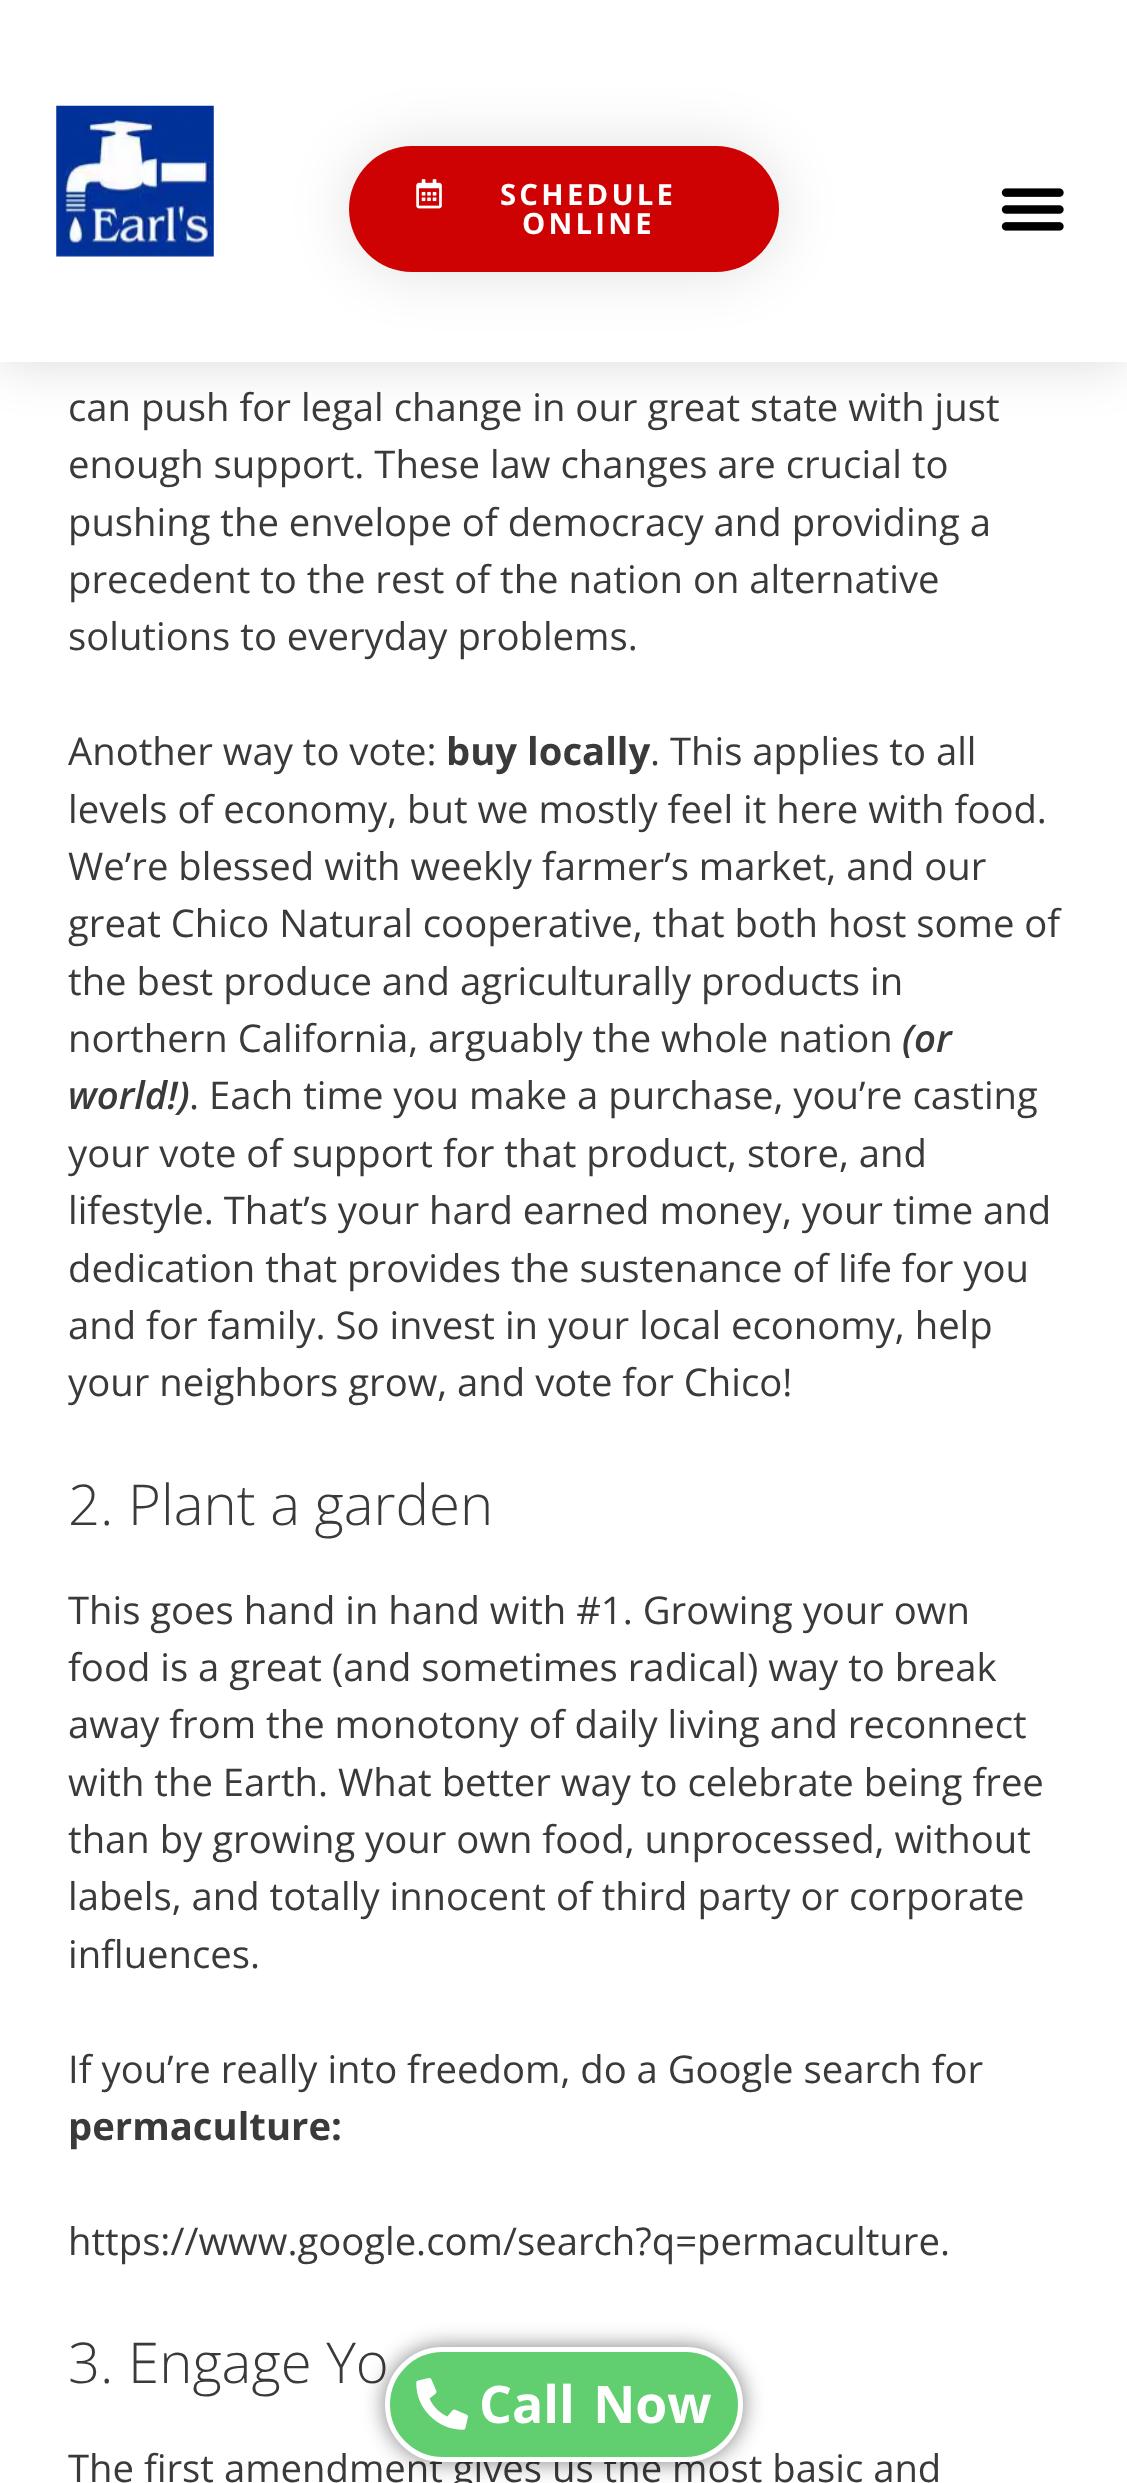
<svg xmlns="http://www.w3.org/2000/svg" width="1127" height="2483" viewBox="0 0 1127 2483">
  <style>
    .t1 { font: bold 29.25px Open Sans; letter-spacing: 3.25px; fill: #fff; }
    .t2 { font: 38.25px Open Sans; fill: #3a3a3a; }
    .t3 { font: bold 38.25px Open Sans; fill: #3a3a3a; }
    .t4 { font: italic 600 38.25px Open Sans; fill: #3a3a3a; }
    .t5 { font: 300 56.25px Open Sans; fill: #3a3a3a; }
    .t6 { font: bold 51.75px Open Sans; fill: #fff; }
  </style>
  <rect width="100%" height="100%" fill="#fff"/>
  <rect x="0" y="0" width="1127" height="362" fill="#00000026" filter="blur(27px)"/>
  <rect x="0" y="0" width="1127" height="362" fill="#fff"/>
  <image x="56" y="105" width="158" height="152" href="images/1.png"/>
  <rect x="349" y="146" width="430" height="126" rx="63" fill="#0000001f" filter="blur(30.5px)"/>
  <rect x="349" y="146" width="430" height="126" rx="63" fill="#ce0202"/>
  <image x="416" y="179" width="26" height="30" href="images/2.png"/>
  <text x="500" y="205" class="t1">SCHEDULE</text>
  <text x="522" y="234" class="t1">ONLINE</text>
  <image x="1001" y="188" width="63" height="43" href="images/3.png"/>
  <text x="68" y="421" class="t2">can push for legal change in our great state with just</text>
  <text x="68" y="478" class="t2">enough support. These law changes are crucial to</text>
  <text x="68" y="536" class="t2">pushing the envelope of democracy and providing a</text>
  <text x="68" y="593" class="t2">precedent to the rest of the nation on alternative</text>
  <text x="68" y="650" class="t2">solutions to everyday problems.</text>
  <text x="68" y="765" class="t2">Another way to vote:</text>
  <text x="446" y="765" class="t3">buy locally</text>
  <text x="650" y="765" class="t2">. This applies to all</text>
  <text x="68" y="823" class="t2">levels of economy, but we mostly feel it here with food.</text>
  <text x="68" y="880" class="t2">We’re blessed with weekly farmer’s market, and our</text>
  <text x="68" y="937" class="t2">great Chico Natural cooperative, that both host some of</text>
  <text x="68" y="995" class="t2">the best produce and agriculturally products in</text>
  <text x="68" y="1052" class="t2">northern California, arguably the whole nation</text>
  <text x="902" y="1052" class="t4">(or</text>
  <text x="68" y="1109" class="t4">world!)</text>
  <text x="189" y="1109" class="t2">. Each time you make a purchase, you’re casting</text>
  <text x="68" y="1167" class="t2">your vote of support for that product, store, and</text>
  <text x="68" y="1224" class="t2">lifestyle. That’s your hard earned money, your time and</text>
  <text x="68" y="1282" class="t2">dedication that provides the sustenance of life for you</text>
  <text x="68" y="1339" class="t2">and for family. So invest in your local economy, help</text>
  <text x="68" y="1396" class="t2">your neighbors grow, and vote for Chico!</text>
  <text x="68" y="1525" class="t5">2. Plant a garden</text>
  <text x="68" y="1624" class="t2">This goes hand in hand with #1. Growing your own</text>
  <text x="68" y="1681" class="t2">food is a great (and sometimes radical) way to break</text>
  <text x="68" y="1738" class="t2">away from the monotony of daily living and reconnect</text>
  <text x="68" y="1796" class="t2">with the Earth. What better way to celebrate being free</text>
  <text x="68" y="1853" class="t2">than by growing your own food, unprocessed, without</text>
  <text x="68" y="1910" class="t2">labels, and totally innocent of third party or corporate</text>
  <text x="68" y="1968" class="t2">influences.</text>
  <text x="68" y="2083" class="t2">If you’re really into freedom, do a Google search for</text>
  <text x="68" y="2140" class="t3">permaculture:</text>
  <text x="68" y="2255" class="t2">https://www.google.com/search?q=permaculture.</text>
  <text x="68" y="2383" class="t5">3. Engage Yo</text>
  <text x="68" y="2482" class="t2">The first amendment gives us the most basic and</text>
  <rect x="385" y="2347" width="358" height="115" rx="57.5" fill="#00000080" filter="blur(11px)"/>
  <rect x="387.5" y="2349.5" width="353" height="110" rx="55" fill="#61ce70" stroke="#fff" stroke-width="5"/>
  <image x="416" y="2378" width="52" height="52" href="images/4.png"/>
  <text x="479" y="2423" word-spacing="5" class="t6">Call Now</text>
</svg>
